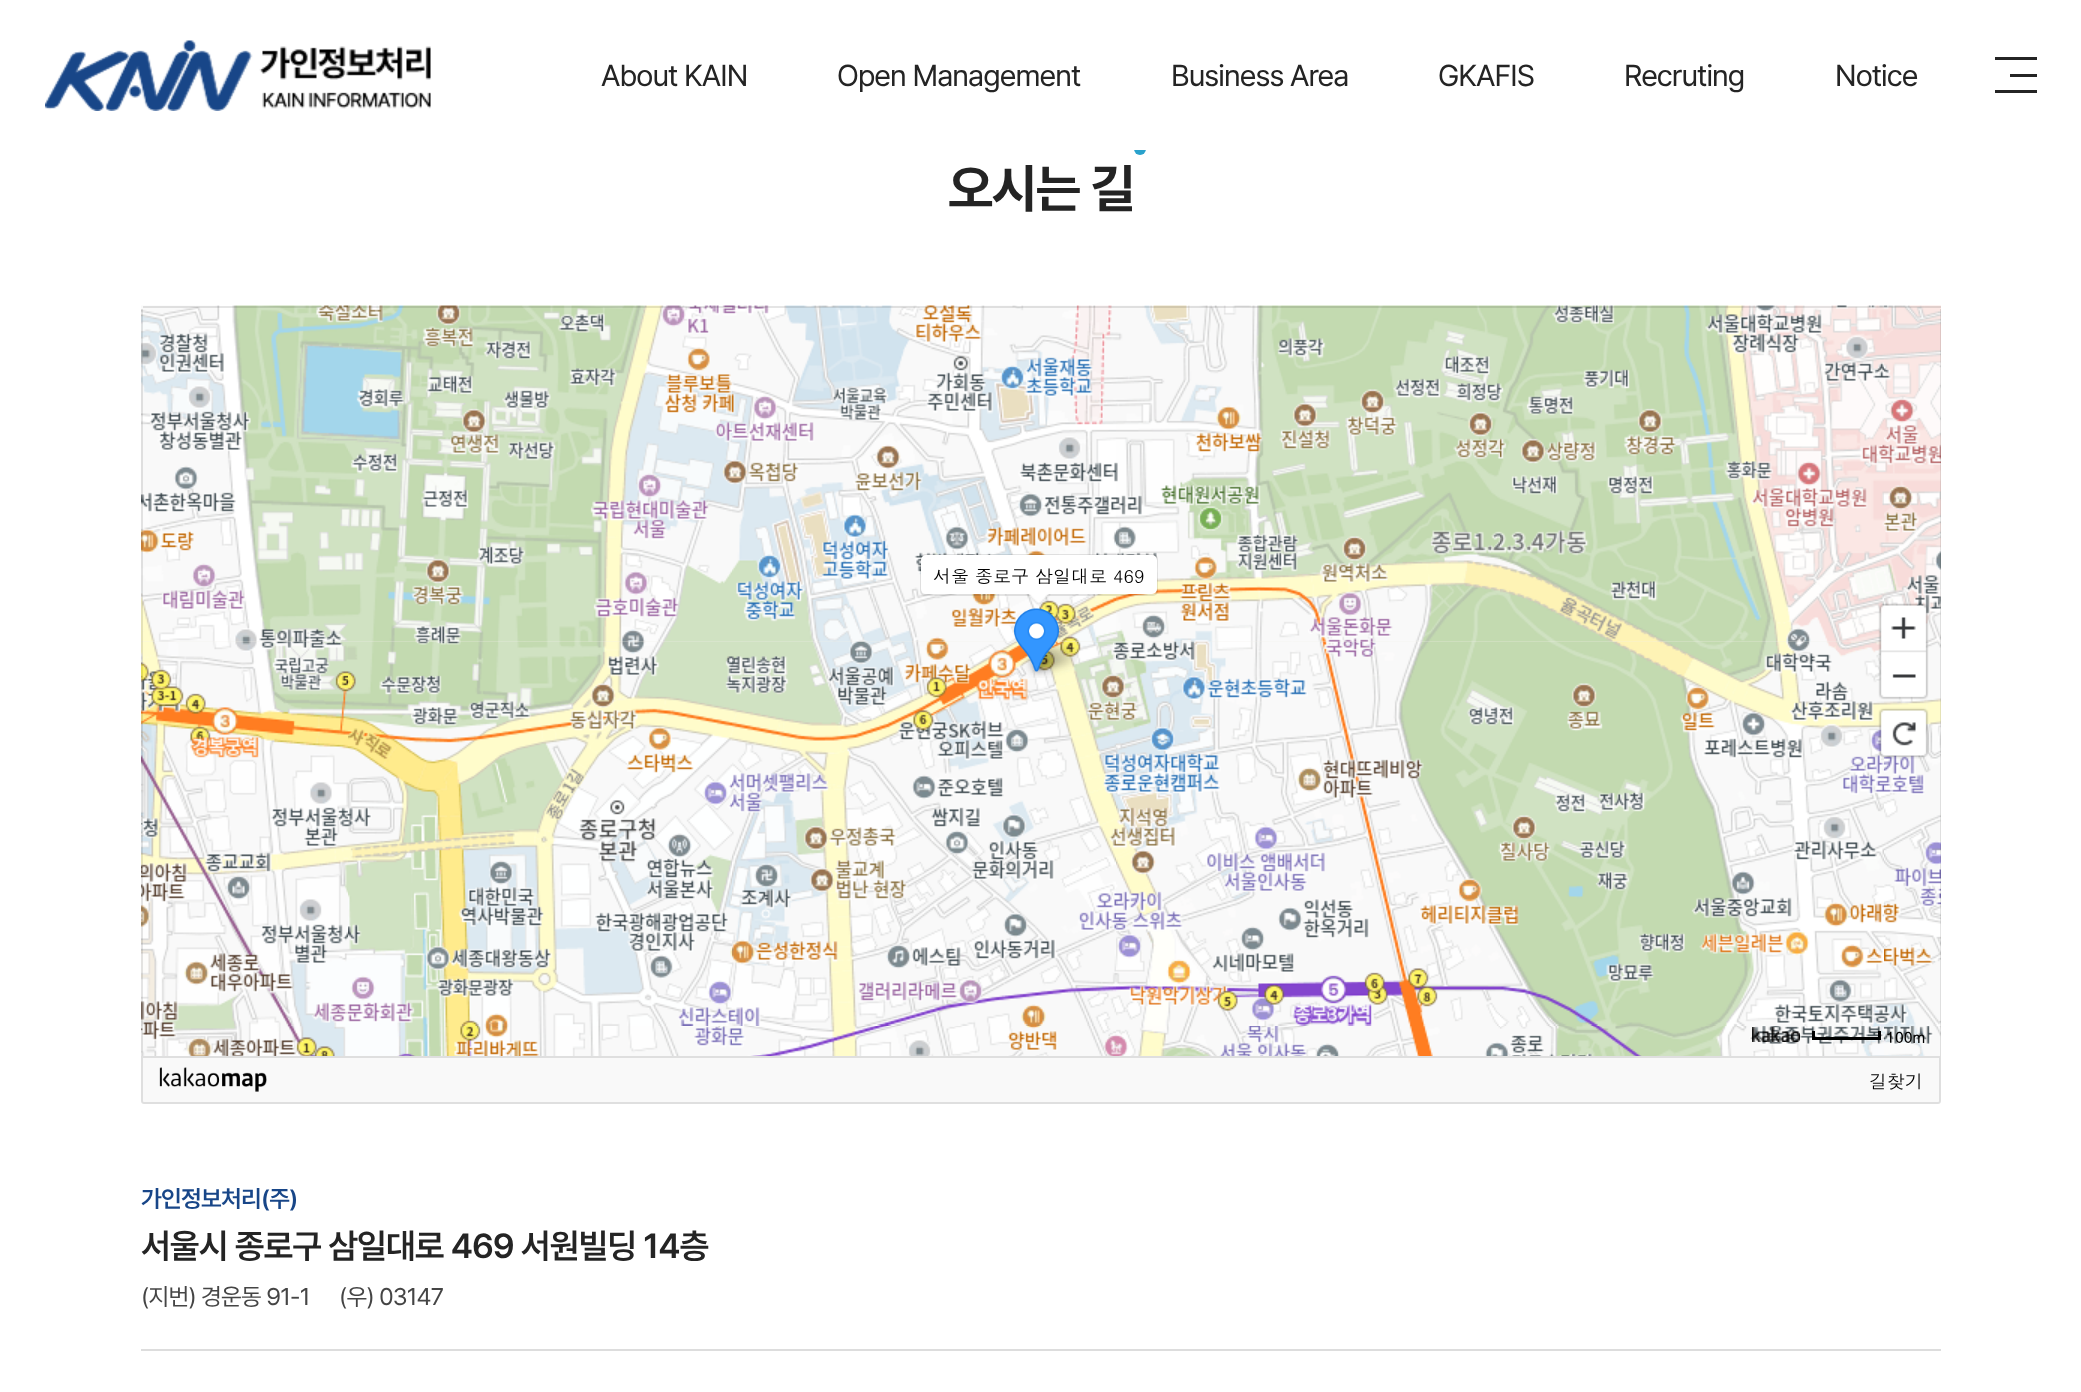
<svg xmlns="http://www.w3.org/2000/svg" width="2081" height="1392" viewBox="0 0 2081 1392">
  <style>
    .t1 { font: 30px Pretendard; letter-spacing: -0.9px; fill: #242424; }
    .t2 { font: bold 52.5px Pretendard; letter-spacing: -1.5px; fill: #242424; }
    .t3 { font: 18px Dotum; fill: #000; }
    .t4 { font: bold 15px Dotum; fill: #000; }
    .t5 { font: 600 24px Pretendard; letter-spacing: -0.75px; fill: #184688; }
    .t6 { font: 600 34.5px Pretendard; letter-spacing: -1px; fill: #242424; }
    .t7 { font: 24px Pretendard; letter-spacing: -0.75px; fill: #454545; }
  </style>
  <rect width="100%" height="100%" fill="#fff"/>
  <circle cx="1140" cy="149" r="6" fill="#2aa2cc"/>
  <rect x="1134" y="143" width="12" height="7" fill="#fff"/>
  <image x="45" y="40" width="386" height="71" href="images/1.png"/>
  <text x="601" y="86" class="t1">About KAIN</text>
  <text x="837" y="86" class="t1">Open Management</text>
  <text x="1171" y="86" class="t1">Business Area</text>
  <text x="1438" y="86" class="t1">GKAFIS</text>
  <text x="1624" y="86" class="t1">Recruting</text>
  <text x="1835" y="86" class="t1">Notice</text>
  <rect x="2010" y="74" width="27" height="3" fill="#242424"/>
  <rect x="1995" y="57" width="42" height="3" fill="#242424"/>
  <rect x="1995" y="90" width="42" height="3" fill="#242424"/>
  <text x="948" y="207" class="t2">오시는 길</text>
  <image x="141" y="641" width="1800" height="1" href="images/2.png"/>
  <image x="141" y="641" width="207" height="385" href="images/9.png"/>
  <image x="141" y="305" width="207" height="337" href="images/3.png"/>
  <image x="348" y="641" width="384" height="385" href="images/10.png"/>
  <image x="348" y="305" width="384" height="337" href="images/4.png"/>
  <image x="732" y="641" width="384" height="385" href="images/11.png"/>
  <image x="732" y="305" width="384" height="337" href="images/5.png"/>
  <image x="1116" y="641" width="384" height="385" href="images/12.png"/>
  <image x="1116" y="305" width="384" height="337" href="images/6.png"/>
  <image x="1500" y="641" width="384" height="385" href="images/13.png"/>
  <image x="1500" y="305" width="384" height="337" href="images/7.png"/>
  <image x="1884" y="641" width="57" height="385" href="images/14.png"/>
  <image x="1884" y="305" width="57" height="337" href="images/8.png"/>
  <rect x="143" y="306" width="1798" height="2" fill="#0000001a"/>
  <image x="141" y="1026" width="207" height="30" href="images/15.png"/>
  <rect x="141" y="309" width="2" height="747" fill="#0000001a"/>
  <image x="348" y="1026" width="384" height="30" href="images/16.png"/>
  <image x="732" y="1026" width="384" height="30" href="images/17.png"/>
  <image x="1116" y="1026" width="384" height="30" href="images/18.png"/>
  <image x="1500" y="1026" width="384" height="30" href="images/19.png"/>
  <image x="1884" y="1026" width="57" height="30" href="images/20.png"/>
  <rect x="921" y="555" width="236" height="40" rx="4" fill="none" stroke="#0000001a" stroke-width="2"/>
  <rect x="921" y="555" width="236" height="39" rx="5" fill="#fff"/>
  <text x="933" y="583" class="t3">서울 종로구 삼일대로 469</text>
  <image x="1027" y="594" width="24" height="12" href="images/21.png"/>
  <image x="1014" y="608" width="63" height="70" href="images/22.png"/>
  <image x="1752" y="1027" width="48" height="15" href="images/23.png"/>
  <rect x="1878" y="1031" width="3" height="9" fill="#000"/>
  <rect x="1812" y="1037" width="69" height="3" fill="#000"/>
  <rect x="1812" y="1031" width="3" height="9" fill="#000"/>
  <text x="1886" y="1043" class="t4">100m</text>
  <rect x="1940" y="309" width="1" height="747" fill="#0000001a"/>
  <image x="1878" y="603" width="51" height="156" href="images/24.png"/>
  <image x="1891" y="617" width="25" height="22" href="images/25.png"/>
  <image x="1892" y="674" width="24" height="4" href="images/26.png"/>
  <image x="1892" y="722" width="24" height="24" href="images/27.png"/>
  <path d="M141 1056H1941V1101C1941 1102.5 1939.5 1104 1938 1104H144C142.5 1104 141 1102.5 141 1101Z" fill="#f9f9f9"/>
  <path d="M142 1057H1940V1101C1940 1102 1939 1103 1938 1103H144C143 1103 142 1102 142 1101Z" fill="none" stroke="#0000001a" stroke-width="2"/>
  <image x="159" y="1067" width="108" height="25" href="images/28.png"/>
  <text x="1869" y="1088" class="t3">길찾기</text>
  <text x="141" y="1207" class="t5">가인정보처리(주)</text>
  <text x="141" y="1258" class="t6">서울시 종로구 삼일대로 469 서원빌딩 14층</text>
  <text x="141" y="1305" class="t7">(지번) 경운동 91-1</text>
  <text x="339" y="1305" class="t7">(우) 03147</text>
  <rect x="141" y="1349" width="1800" height="2" fill="#ddd"/>
</svg>
